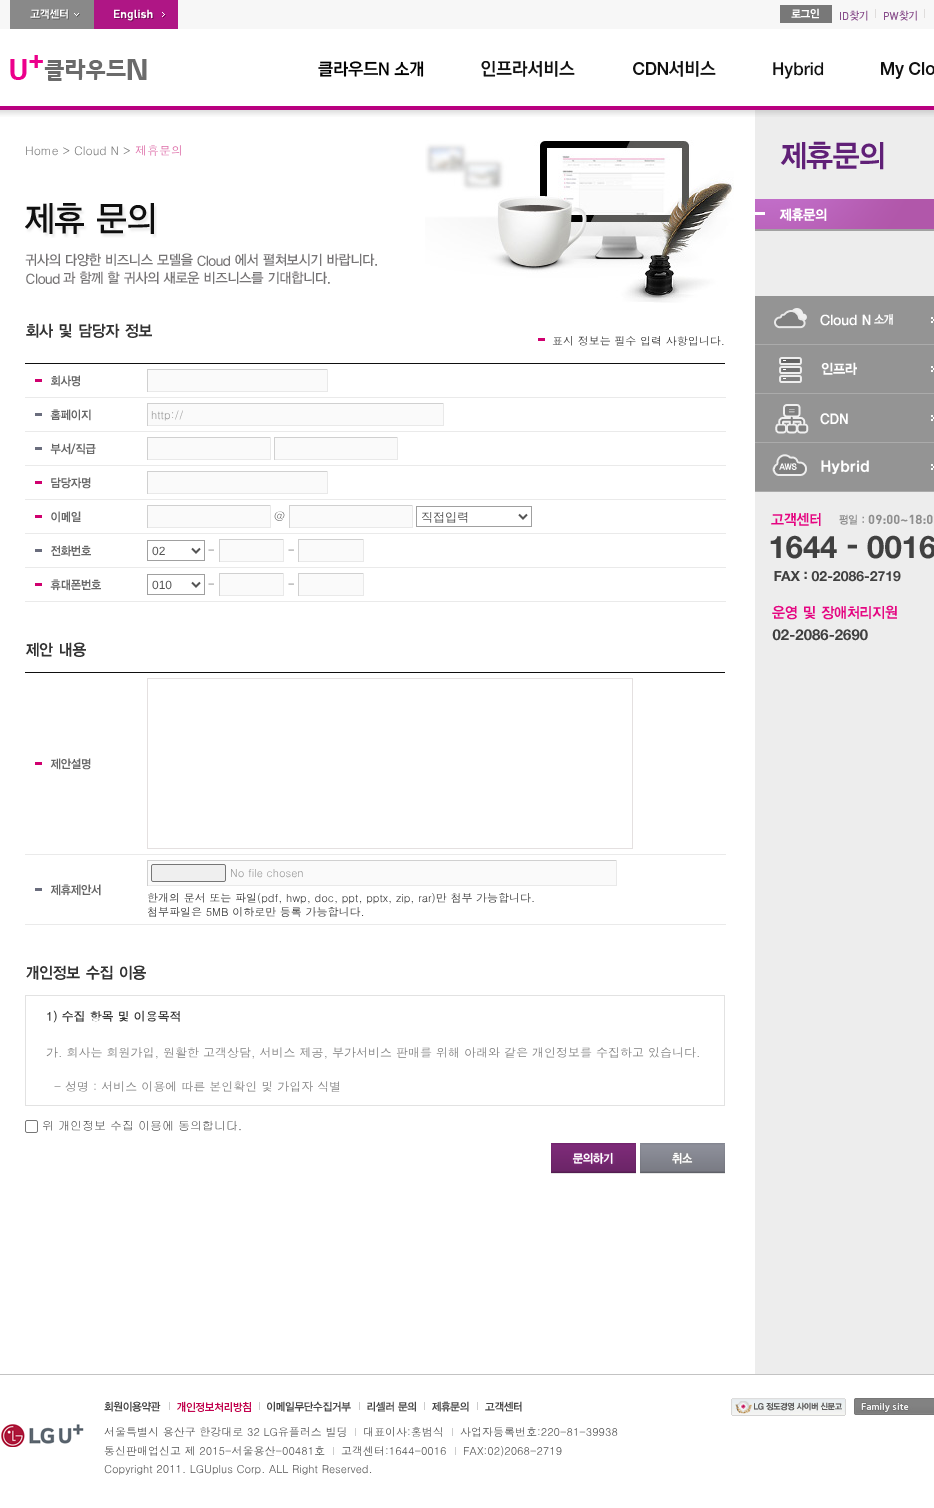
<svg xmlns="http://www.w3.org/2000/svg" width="934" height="1508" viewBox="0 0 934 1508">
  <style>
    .t1 { font: 12px Dotum; fill: #7b7b7b; }
    .t2 { font: 12px Dotum; fill: #de71aa; }
    .t3 { font: 11px Dotum; fill: #363636; }
    .t4 { font: 11px Dotum; fill: #999; }
    .t5 { font: 11px Dotum; fill: #555; }
    .t6 { font: 500 12px WenQuanYi Zen Hei; fill: #555; }
    .t7 { font: 12px Liberation Sans; fill: #555; }
    .t8 { font: bold 12px Dotum; fill: #363636; }
    .t9 { font: 12px Dotum; fill: #838383; }
    .t10 { font: 12px Gulim; fill: #555; }
  </style>
  <rect width="100%" height="100%" fill="#fff"/>
  <rect x="0" y="0" width="934" height="29" fill="#f7f7f7"/>
  <image x="10" y="0" width="84" height="29" href="images/1.png"/>
  <image x="94" y="0" width="84" height="29" href="images/2.png"/>
  <image x="780" y="5" width="52" height="18" href="images/3.png"/>
  <rect x="875" y="9" width="1" height="9" fill="#dfdddc"/>
  <image x="840" y="10" width="28" height="11" href="images/4.png"/>
  <rect x="924" y="9" width="1" height="9" fill="#dfdddc"/>
  <image x="884" y="10" width="33" height="11" href="images/5.png"/>
  <image x="10" y="55" width="137" height="26" href="images/6.png"/>
  <image x="318" y="61" width="106" height="16" href="images/7.png"/>
  <image x="481" y="61" width="94" height="16" href="images/8.png"/>
  <image x="633" y="61" width="83" height="16" href="images/9.png"/>
  <image x="773" y="62" width="51" height="17" href="images/10.png"/>
  <image x="881" y="62" width="53" height="17" href="images/11.png"/>
  <rect x="755" y="110" width="179" height="1264" fill="#ededed"/>
  <image x="0" y="106" width="934" height="11" href="images/12.png"/>
  <image x="425" y="140" width="309" height="163" href="images/13.png"/>
  <text x="25" y="155" class="t1">Home &gt; Cloud N &gt;</text>
  <text x="135" y="155" class="t2">제휴문의</text>
  <image x="25" y="203" width="132" height="35" href="images/14.png"/>
  <image x="25" y="253" width="352" height="31" href="images/15.png"/>
  <image x="26" y="323" width="126" height="15" href="images/16.png"/>
  <rect x="538" y="338" width="7" height="3" fill="#d0006f"/>
  <text x="552" y="345" class="t3">표시 정보는 필수 입력 사항입니다.</text>
  <rect x="25" y="363" width="700" height="1" fill="#0f0f0f"/>
  <rect x="25" y="397" width="701" height="1" fill="#eaeaea"/>
  <rect x="148" y="370" width="179" height="21" fill="#fafafa"/>
  <rect x="147" y="369" width="181" height="1" fill="#d0d0d0"/>
  <rect x="327" y="369" width="1" height="23" fill="#e9e9e9"/>
  <rect x="147" y="391" width="181" height="1" fill="#e9e9e9"/>
  <rect x="147" y="369" width="1" height="23" fill="#d0d0d0"/>
  <rect x="35" y="379" width="7" height="3" fill="#d0006f"/>
  <image x="51" y="375" width="29" height="12" href="images/17.png"/>
  <rect x="35" y="413" width="7" height="3" fill="#6a6d7d"/>
  <image x="50" y="409" width="41" height="12" href="images/18.png"/>
  <rect x="25" y="431" width="701" height="1" fill="#eaeaea"/>
  <rect x="148" y="404" width="295" height="21" fill="#fafafa"/>
  <rect x="147" y="403" width="297" height="1" fill="#d0d0d0"/>
  <rect x="443" y="403" width="1" height="23" fill="#e9e9e9"/>
  <rect x="147" y="425" width="297" height="1" fill="#e9e9e9"/>
  <rect x="147" y="403" width="1" height="23" fill="#d0d0d0"/>
  <text x="151" y="419" class="t4">http://</text>
  <rect x="25" y="465" width="701" height="1" fill="#eaeaea"/>
  <rect x="148" y="438" width="122" height="21" fill="#fafafa"/>
  <rect x="147" y="437" width="124" height="1" fill="#d0d0d0"/>
  <rect x="270" y="437" width="1" height="23" fill="#e9e9e9"/>
  <rect x="147" y="459" width="124" height="1" fill="#e9e9e9"/>
  <rect x="147" y="437" width="1" height="23" fill="#d0d0d0"/>
  <rect x="275" y="438" width="122" height="21" fill="#fafafa"/>
  <rect x="274" y="437" width="124" height="1" fill="#d0d0d0"/>
  <rect x="397" y="437" width="1" height="23" fill="#e9e9e9"/>
  <rect x="274" y="459" width="124" height="1" fill="#e9e9e9"/>
  <rect x="274" y="437" width="1" height="23" fill="#d0d0d0"/>
  <rect x="35" y="447" width="7" height="3" fill="#6a6d7d"/>
  <image x="50" y="443" width="46" height="12" href="images/19.png"/>
  <rect x="25" y="499" width="701" height="1" fill="#eaeaea"/>
  <rect x="148" y="472" width="179" height="21" fill="#fafafa"/>
  <rect x="147" y="471" width="181" height="1" fill="#d0d0d0"/>
  <rect x="327" y="471" width="1" height="23" fill="#e9e9e9"/>
  <rect x="147" y="493" width="181" height="1" fill="#e9e9e9"/>
  <rect x="147" y="471" width="1" height="23" fill="#d0d0d0"/>
  <rect x="35" y="481" width="7" height="3" fill="#d0006f"/>
  <image x="51" y="477" width="40" height="12" href="images/20.png"/>
  <rect x="35" y="515" width="7" height="3" fill="#d0006f"/>
  <image x="51" y="511" width="30" height="12" href="images/21.png"/>
  <rect x="25" y="533" width="701" height="1" fill="#eaeaea"/>
  <rect x="148" y="506" width="122" height="21" fill="#fafafa"/>
  <rect x="147" y="505" width="124" height="1" fill="#d0d0d0"/>
  <rect x="270" y="505" width="1" height="23" fill="#e9e9e9"/>
  <rect x="147" y="527" width="124" height="1" fill="#e9e9e9"/>
  <rect x="147" y="505" width="1" height="23" fill="#d0d0d0"/>
  <text x="274" y="520" class="t5">@</text>
  <rect x="290" y="506" width="122" height="21" fill="#fafafa"/>
  <rect x="289" y="505" width="124" height="1" fill="#d0d0d0"/>
  <rect x="412" y="505" width="1" height="23" fill="#e9e9e9"/>
  <rect x="289" y="527" width="124" height="1" fill="#e9e9e9"/>
  <rect x="289" y="505" width="1" height="23" fill="#d0d0d0"/>
  <rect x="416.5" y="506.5" width="115" height="20" fill="none" stroke="#a0a0a0"/>
  <path d="M519 514.5L523 518.5L527 514.5" fill="none" stroke="#555" stroke-width="2"/>
  <text x="421" y="521" class="t6">직접입력</text>
  <rect x="35" y="549" width="7" height="3" fill="#6a6d7d"/>
  <image x="51" y="545" width="40" height="12" href="images/22.png"/>
  <rect x="25" y="567" width="701" height="1" fill="#eaeaea"/>
  <rect x="147.5" y="540.5" width="57" height="20" fill="none" stroke="#a0a0a0"/>
  <path d="M192 548.5L196 552.5L200 548.5" fill="none" stroke="#555" stroke-width="2"/>
  <text x="152" y="555" class="t7">02</text>
  <text x="208" y="554" class="t5">-</text>
  <rect x="220" y="540" width="63" height="21" fill="#fafafa"/>
  <rect x="219" y="539" width="65" height="1" fill="#d0d0d0"/>
  <rect x="283" y="539" width="1" height="23" fill="#e9e9e9"/>
  <rect x="219" y="561" width="65" height="1" fill="#e9e9e9"/>
  <rect x="219" y="539" width="1" height="23" fill="#d0d0d0"/>
  <text x="288" y="554" class="t5">-</text>
  <rect x="299" y="540" width="64" height="21" fill="#fafafa"/>
  <rect x="298" y="539" width="66" height="1" fill="#d0d0d0"/>
  <rect x="363" y="539" width="1" height="23" fill="#e9e9e9"/>
  <rect x="298" y="561" width="66" height="1" fill="#e9e9e9"/>
  <rect x="298" y="539" width="1" height="23" fill="#d0d0d0"/>
  <rect x="35" y="583" width="7" height="3" fill="#d0006f"/>
  <image x="50" y="579" width="51" height="12" href="images/23.png"/>
  <rect x="25" y="601" width="701" height="1" fill="#eaeaea"/>
  <rect x="147.5" y="574.5" width="57" height="20" fill="none" stroke="#a0a0a0"/>
  <path d="M192 582.5L196 586.5L200 582.5" fill="none" stroke="#555" stroke-width="2"/>
  <text x="152" y="589" class="t7">010</text>
  <text x="208" y="588" class="t5">-</text>
  <rect x="220" y="574" width="63" height="21" fill="#fafafa"/>
  <rect x="219" y="573" width="65" height="1" fill="#d0d0d0"/>
  <rect x="283" y="573" width="1" height="23" fill="#e9e9e9"/>
  <rect x="219" y="595" width="65" height="1" fill="#e9e9e9"/>
  <rect x="219" y="573" width="1" height="23" fill="#d0d0d0"/>
  <text x="288" y="588" class="t5">-</text>
  <rect x="299" y="574" width="64" height="21" fill="#fafafa"/>
  <rect x="298" y="573" width="66" height="1" fill="#d0d0d0"/>
  <rect x="363" y="573" width="1" height="23" fill="#e9e9e9"/>
  <rect x="298" y="595" width="66" height="1" fill="#e9e9e9"/>
  <rect x="298" y="573" width="1" height="23" fill="#d0d0d0"/>
  <image x="25" y="642" width="61" height="15" href="images/24.png"/>
  <rect x="25" y="672" width="700" height="1" fill="#0f0f0f"/>
  <rect x="25" y="854" width="701" height="1" fill="#eaeaea"/>
  <rect x="147.5" y="678.5" width="485" height="170" fill="none" stroke="#e4e0e0"/>
  <rect x="35" y="762" width="7" height="3" fill="#d0006f"/>
  <image x="50" y="758" width="41" height="12" href="images/25.png"/>
  <rect x="35" y="888" width="7" height="3" fill="#6a6d7d"/>
  <image x="50" y="884" width="51" height="12" href="images/26.png"/>
  <rect x="25" y="924" width="701" height="1" fill="#eaeaea"/>
  <rect x="148" y="861" width="468" height="24" fill="#fafafa"/>
  <rect x="147" y="860" width="470" height="1" fill="#d0d0d0"/>
  <rect x="616" y="860" width="1" height="26" fill="#e9e9e9"/>
  <rect x="147" y="885" width="470" height="1" fill="#e9e9e9"/>
  <rect x="147" y="860" width="1" height="26" fill="#d0d0d0"/>
  <rect x="151.5" y="864.5" width="74" height="17" rx="1.5" fill="#efefef" stroke="#767676"/>
  <text x="230" y="877" class="t4">No file chosen</text>
  <text x="147" y="902" class="t3">한개의 문서 또는 파일(pdf, hwp, doc, ppt, pptx, zip, rar)만 첨부 가능합니다.</text>
  <text x="147" y="916" class="t3">첨부파일은 5MB 이하로만 등록 가능합니다.</text>
  <image x="26" y="965" width="120" height="15" href="images/27.png"/>
  <rect x="25.5" y="995.5" width="699" height="110" fill="none" stroke="#e2e2e2"/>
  <text x="46" y="1021" class="t8">1) 수집 항목 및 이용목적</text>
  <text x="46" y="1057" class="t9">가. 회사는 회원가입, 원활한 고객상담, 서비스 제공, 부가서비스 판매를 위해 아래와 같은 개인정보를 수집하고 있습니다.</text>
  <text x="54" y="1091" class="t9">- 성명 : 서비스 이용에 따른 본인확인 및 가입자 식별</text>
  <rect x="25.5" y="1120.5" width="12" height="12" rx="1.5" fill="none" stroke="#767676"/>
  <text x="42" y="1130" class="t10">위 개인정보 수집 이용에 동의합니다.</text>
  <image x="551" y="1143" width="85" height="31" href="images/28.png"/>
  <image x="640" y="1143" width="85" height="31" href="images/29.png"/>
  <image x="780" y="141" width="104" height="29" href="images/30.png"/>
  <image x="755" y="199" width="179" height="32" href="images/31.png"/>
  <rect x="755" y="344" width="179" height="1" fill="#ababab"/>
  <image x="755" y="296" width="179" height="48" href="images/32.png"/>
  <rect x="755" y="393" width="179" height="1" fill="#ababab"/>
  <image x="755" y="345" width="179" height="48" href="images/33.png"/>
  <rect x="755" y="442" width="179" height="1" fill="#ababab"/>
  <image x="755" y="394" width="179" height="48" href="images/34.png"/>
  <rect x="755" y="491" width="179" height="1" fill="#ababab"/>
  <image x="755" y="443" width="179" height="48" href="images/35.png"/>
  <image x="770" y="513" width="164" height="128" href="images/36.png"/>
  <rect x="0" y="1374" width="934" height="1" fill="#c3c3c3"/>
  <image x="731" y="1398" width="115" height="18" href="images/37.png"/>
  <image x="854" y="1398" width="80" height="17" href="images/38.png"/>
  <image x="1" y="1424" width="83" height="23" href="images/39.png"/>
  <image x="104" y="1401" width="57" height="11" href="images/40.png"/>
  <rect x="169" y="1402" width="1" height="8" fill="#ccc"/>
  <image x="177" y="1401" width="74" height="11" href="images/41.png"/>
  <rect x="259" y="1402" width="1" height="8" fill="#ccc"/>
  <image x="267" y="1401" width="84" height="11" href="images/42.png"/>
  <rect x="359" y="1402" width="1" height="8" fill="#ccc"/>
  <image x="367" y="1401" width="49" height="11" href="images/43.png"/>
  <rect x="424" y="1402" width="1" height="8" fill="#ccc"/>
  <image x="432" y="1401" width="37" height="11" href="images/44.png"/>
  <rect x="477" y="1402" width="1" height="8" fill="#ccc"/>
  <image x="485" y="1401" width="37" height="11" href="images/45.png"/>
  <text x="104" y="1436" class="t5">서울특별시 용산구 한강대로 32 LG유플러스 빌딩</text>
  <rect x="355" y="1428" width="1" height="8" fill="#ccc"/>
  <text x="363" y="1436" class="t5">대표이사:홍범식</text>
  <rect x="452" y="1428" width="1" height="8" fill="#ccc"/>
  <text x="460" y="1436" class="t5">사업자등록번호:220-81-39938</text>
  <text x="104" y="1455" class="t5">통신판매업신고 제 2015-서울용산-00481호</text>
  <rect x="333" y="1447" width="1" height="8" fill="#ccc"/>
  <text x="341" y="1455" class="t5">고객센터:1644-0016</text>
  <rect x="455" y="1447" width="1" height="8" fill="#ccc"/>
  <text x="463" y="1455" class="t5">FAX:02)2068-2719</text>
  <text x="104" y="1473" class="t5">Copyright 2011. LGUplus Corp. ALL Right Reserved.</text>
</svg>
